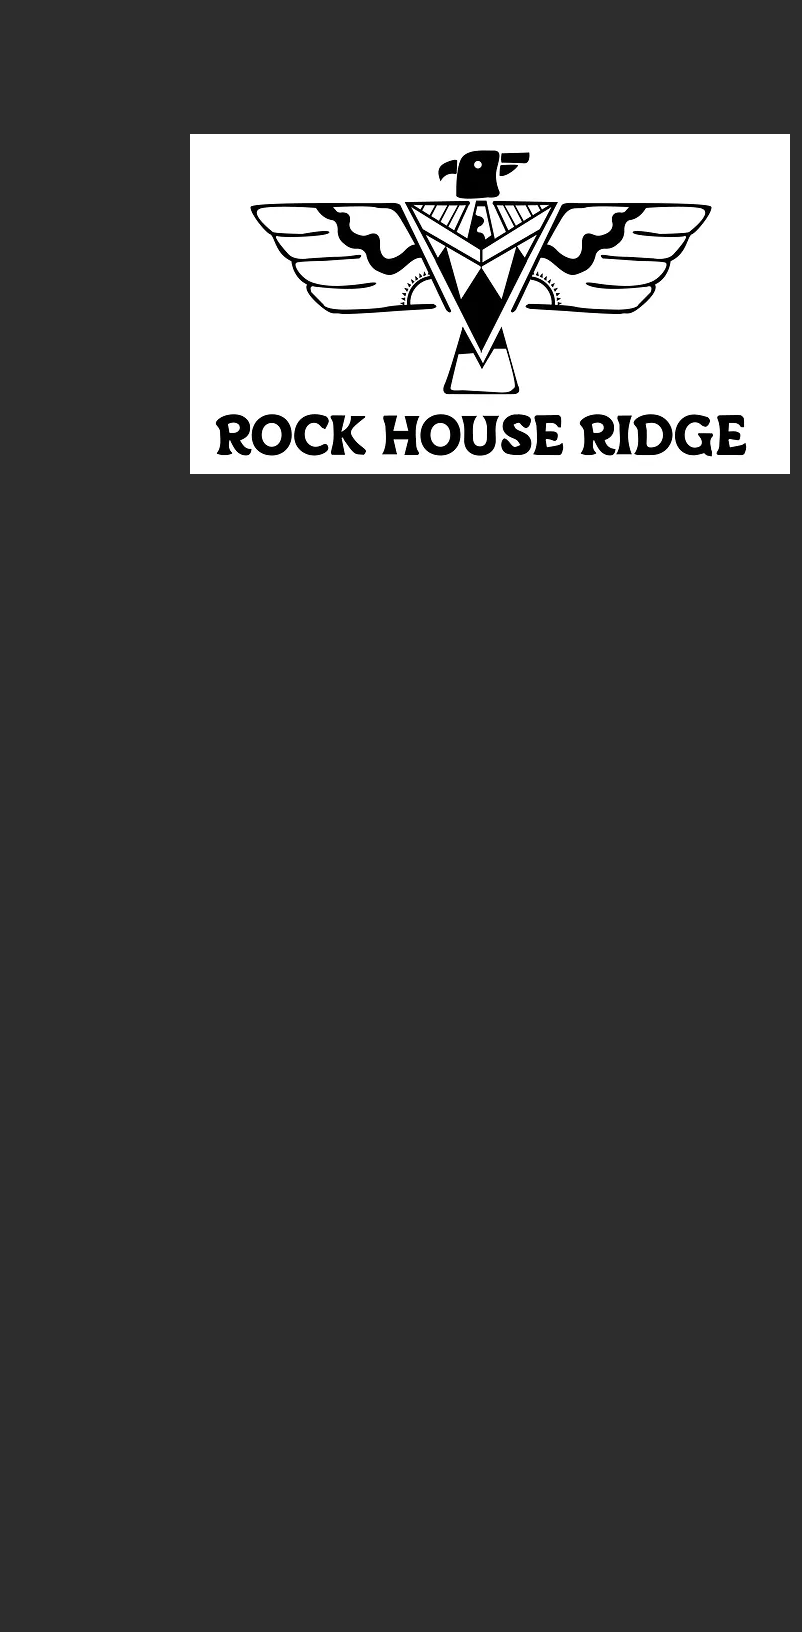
<svg xmlns="http://www.w3.org/2000/svg" width="802" height="1632" viewBox="0 0 802 1632">
  <rect width="100%" height="100%" fill="#2d2d2d"/>
  <image x="190" y="134" width="600" height="340" href="images/1.png"/>
</svg>
